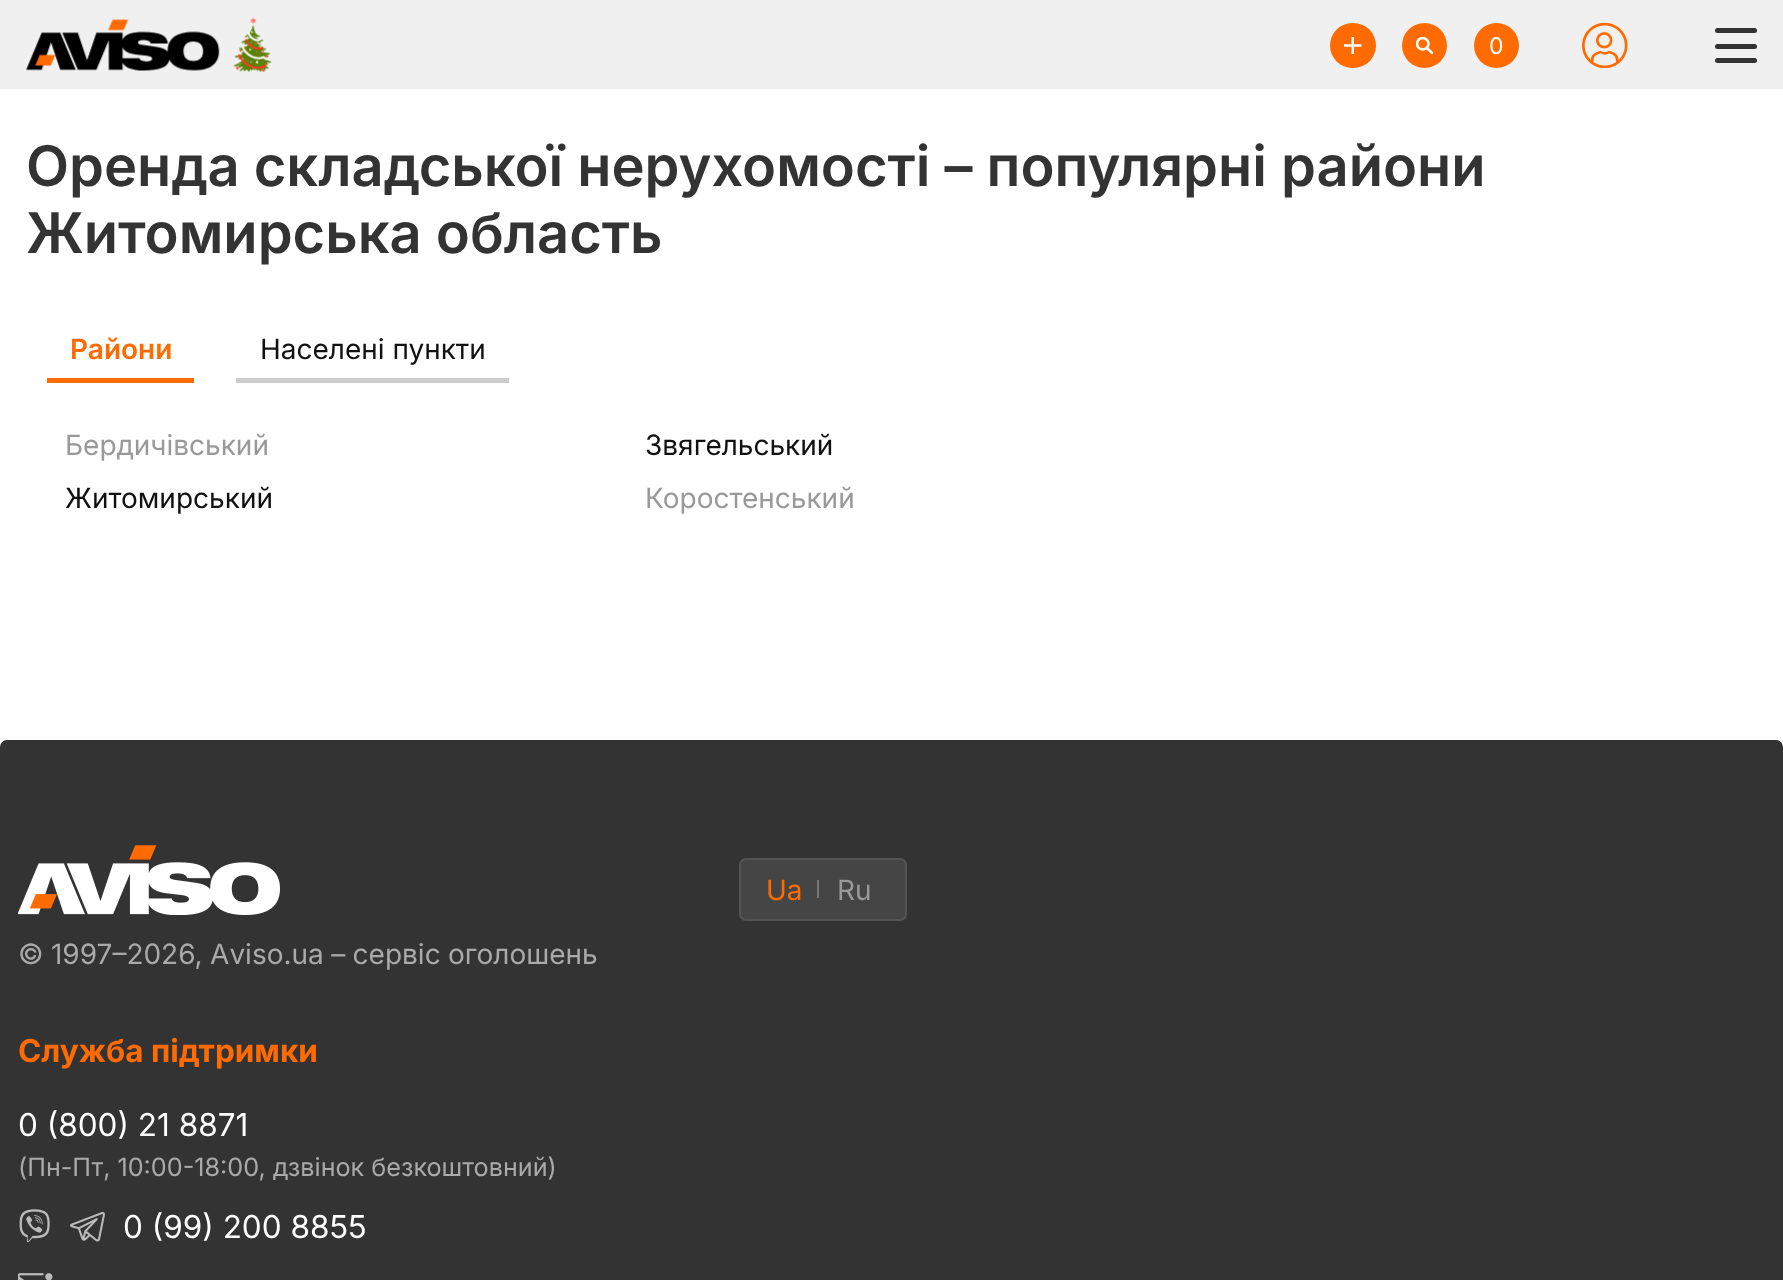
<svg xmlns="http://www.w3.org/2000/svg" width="1783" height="1280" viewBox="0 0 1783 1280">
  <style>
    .t1 { font: 23px Inter; fill: #fff; }
    .t2 { font: 600 56px Inter; fill: #333; }
    .t3 { font: 600 28px Inter; fill: #ff6b00; }
    .t4 { font: 28px Inter; fill: #111; }
    .t5 { font: 28px Inter; fill: #999; }
    .t6 { font: 28px Inter; fill: #ff6b00; }
    .t7 { font: 28px Inter; fill: #aaa; }
    .t8 { font: bold 31.5px Inter; fill: #ff6b00; }
    .t9 { font: 31.5px Inter; fill: #fff; }
    .t10 { font: 25.2px Inter; fill: #aaa; }
  </style>
  <rect width="100%" height="100%" fill="#fff"/>
  <rect x="0" y="0" width="1783" height="89" fill="#f0f0f0"/>
  <image x="26" y="17" width="246" height="55" href="images/1.png"/>
  <rect x="1330" y="23" width="46" height="45" rx="22.5" fill="#ff6b00"/>
  <image x="1344" y="37" width="18" height="17" href="images/2.png"/>
  <circle cx="1424.5" cy="45.5" r="22.5" fill="#ff6b00"/>
  <image x="1416" y="37" width="17" height="17" href="images/3.png"/>
  <circle cx="1496.5" cy="45.5" r="22.5" fill="#ff6b00"/>
  <text x="1489" y="54" class="t1">0</text>
  <image x="1582" y="23" width="46" height="45" href="images/4.png"/>
  <rect x="1715" y="28" width="42" height="5" rx="2.5" fill="#333"/>
  <rect x="1715" y="44" width="42" height="5" rx="2.5" fill="#333"/>
  <rect x="1715" y="58" width="42" height="5" rx="2.5" fill="#333"/>
  <text x="26" y="186" class="t2">Оренда складської нерухомості – популярні райони</text>
  <text x="26" y="253" class="t2">Житомирська область</text>
  <rect x="47" y="378" width="147" height="5" fill="#ff6b00"/>
  <text x="70" y="359" class="t3">Райони</text>
  <rect x="236" y="378" width="273" height="5" fill="#ccc"/>
  <text x="260" y="359" class="t4">Населені пункти</text>
  <text x="65" y="455" class="t5">Бердичівський</text>
  <text x="645" y="455" class="t4">Звягельський</text>
  <text x="65" y="508" class="t4">Житомирський</text>
  <text x="645" y="508" class="t5">Коростенський</text>
  <rect x="0" y="740" width="1783" height="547" rx="7" fill="#333"/>
  <rect x="740" y="859" width="166" height="61" rx="6" fill="#464545" stroke="#545454" stroke-width="2"/>
  <text x="766" y="900" class="t6">Ua</text>
  <rect x="817" y="880" width="2" height="18" fill="#777"/>
  <text x="837" y="900" class="t5">Ru</text>
  <image x="18" y="845" width="262" height="70" href="images/5.png"/>
  <text x="18" y="964" word-spacing="-0.5" class="t7">© 1997–2026, Aviso.ua – сервіс оголошень</text>
  <text x="18" y="1062" class="t8">Служба підтримки</text>
  <text x="18" y="1136" class="t9">0 (800) 21 8871</text>
  <text x="18" y="1176" class="t10">(Пн-Пт, 10:00-18:00, дзвінок безкоштовний)</text>
  <image x="19" y="1209" width="31" height="34" href="images/6.png"/>
  <image x="70" y="1211" width="35" height="31" href="images/7.png"/>
  <text x="123" y="1238" class="t9">0 (99) 200 8855</text>
  <image x="18" y="1273" width="35" height="7" href="images/8.png"/>
</svg>
